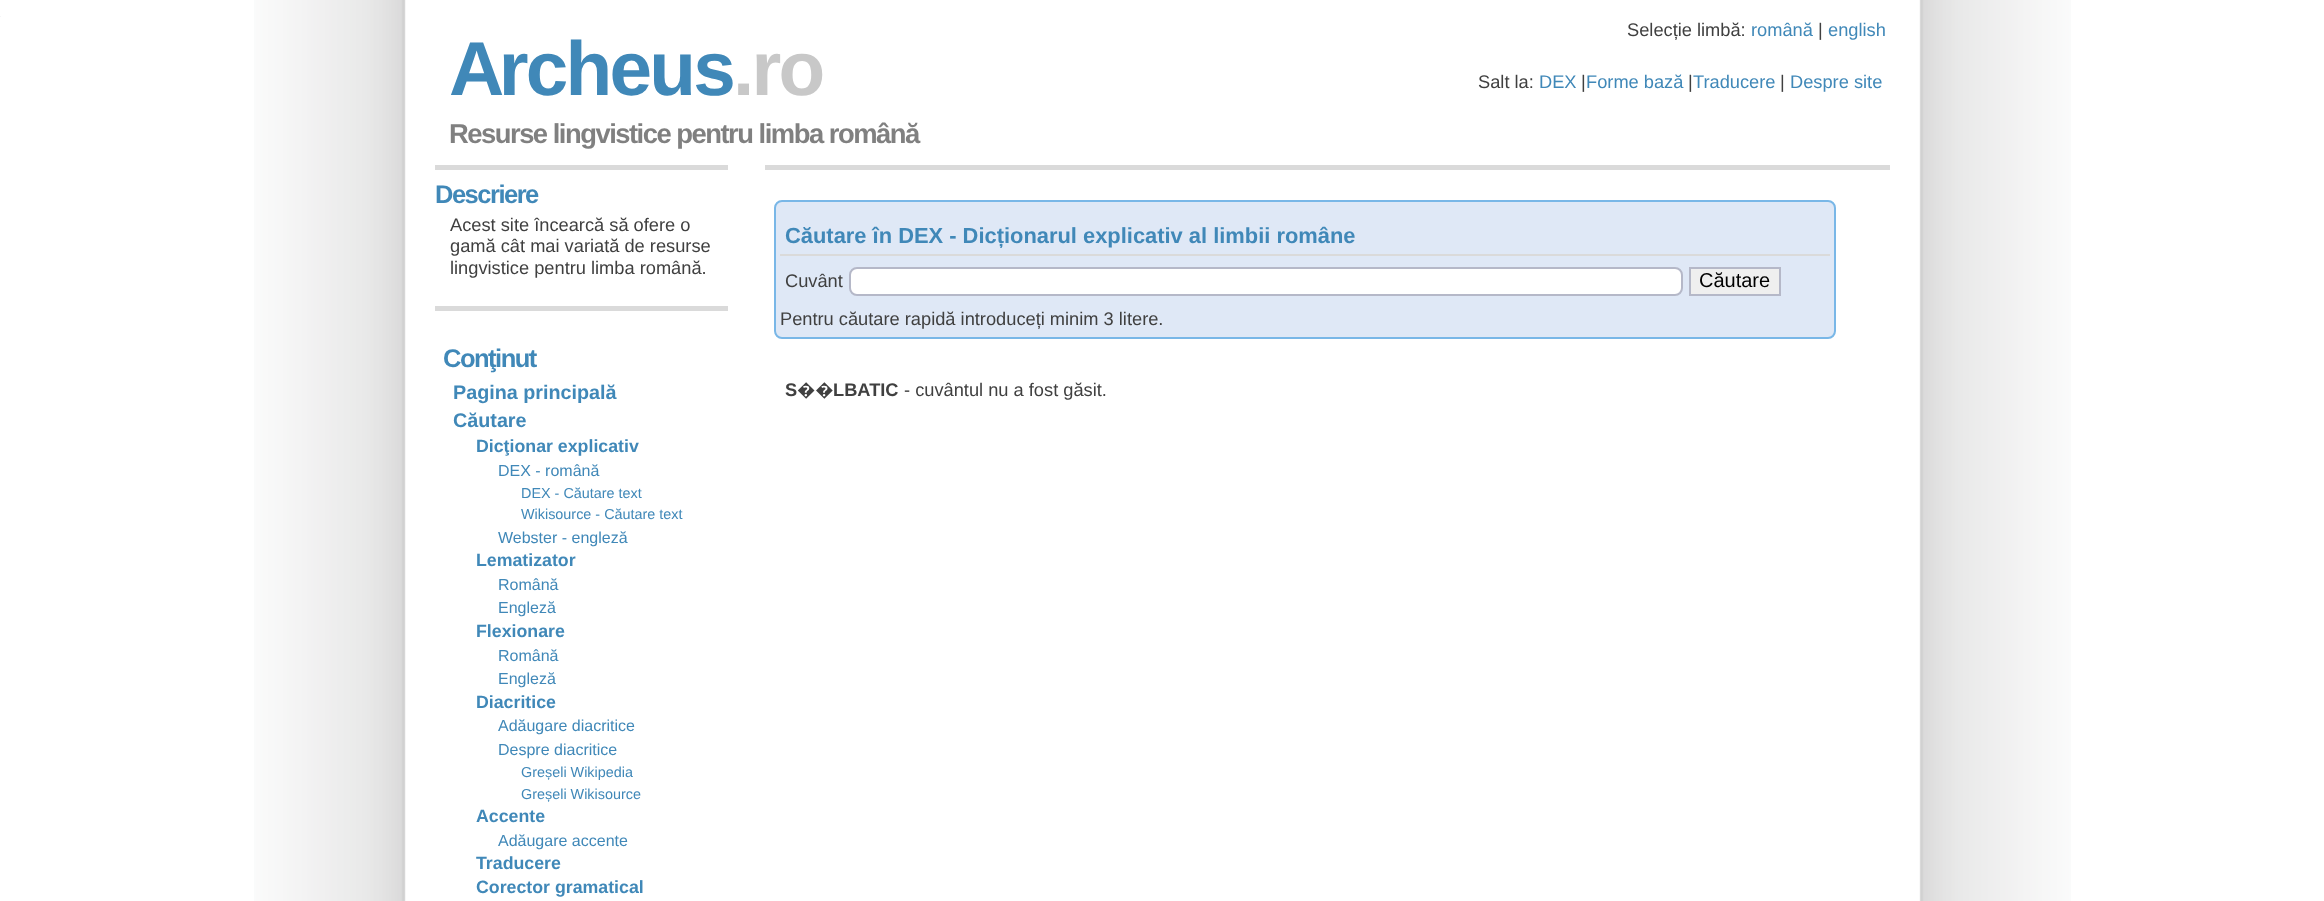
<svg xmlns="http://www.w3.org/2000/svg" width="2324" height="901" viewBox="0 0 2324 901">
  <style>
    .t1 { font: bold 76.5px Liberation Sans; letter-spacing: -12px; fill: #4088b8; }
    .t2 { font: bold 76.5px Liberation Sans; letter-spacing: -12px; fill: #c8c8c8; }
    .t3 { font: 18.25px Liberation Sans; fill: #404040; }
    .t4 { font: 18.25px Liberation Sans; fill: #4088b8; }
    .t5 { font: bold 27.4px Liberation Sans; letter-spacing: -1.5px; fill: #808080; }
    .t6 { font: bold 25.5px Liberation Sans; letter-spacing: -1.5px; fill: #4088b8; }
    .t7 { font: bold 19.75px Liberation Sans; fill: #4088b8; }
    .t8 { font: bold 17.75px Liberation Sans; fill: #4088b8; }
    .t9 { font: 16px Liberation Sans; fill: #4088b8; }
    .t10 { font: 14.4px Liberation Sans; fill: #4088b8; }
    .t11 { font: bold 21.9px Liberation Sans; fill: #4088b8; }
    .t12 { font: 20px Liberation Sans; fill: #000; }
    .t13 { font: bold 18.25px Liberation Sans; fill: #404040; }
    .t14 { font: bold 18.25px Noto Sans; fill: #404040; }
  </style>
  <rect width="100%" height="100%" fill="#fff"/>
  <image x="254" y="0" width="1817" height="901" href="images/1.png"/>
  <image x="0" y="16" width="1" height="1" href="images/3.png"/>
  <image x="0" y="15" width="1" height="2" href="images/2.png"/>
  <text x="449" y="95" class="t1">A r c h e u s</text>
  <text x="733" y="95" class="t2">. r o</text>
  <text x="1627" y="36" class="t3">Selecție limbă:</text>
  <text x="1751" y="36" class="t4">română</text>
  <text x="1818" y="36" class="t3">|</text>
  <text x="1828" y="36" class="t4">english</text>
  <text x="1478" y="88" class="t3">Salt la:</text>
  <text x="1539" y="88" class="t4">DEX</text>
  <text x="1581" y="88" class="t3">|</text>
  <text x="1586" y="88" class="t4">Forme bază</text>
  <text x="1688" y="88" class="t3">|</text>
  <text x="1693" y="88" class="t4">Traducere</text>
  <text x="1780" y="88" class="t3">|</text>
  <text x="1790" y="88" class="t4">Despre site</text>
  <text x="449" y="143" class="t5">Resurse lingvistice pentru limba română</text>
  <rect x="435" y="165" width="293" height="5" fill="#dadada"/>
  <text x="435" y="203" class="t6">Descriere</text>
  <text x="450" y="231" class="t3">Acest site încearcă să ofere o</text>
  <text x="450" y="252" class="t3">gamă cât mai variată de resurse</text>
  <text x="450" y="274" class="t3">lingvistice pentru limba română.</text>
  <rect x="435" y="306" width="293" height="5" fill="#dadada"/>
  <text x="443" y="367" class="t6">Conţinut</text>
  <text x="453" y="399" class="t7">Pagina principală</text>
  <text x="453" y="427" class="t7">Căutare</text>
  <text x="476" y="452" class="t8">Dicţionar explicativ</text>
  <text x="498" y="476" class="t9">DEX - română</text>
  <text x="521" y="498" class="t10">DEX - Căutare text</text>
  <text x="521" y="519" class="t10">Wikisource - Căutare text</text>
  <text x="498" y="543" class="t9">Webster - engleză</text>
  <text x="476" y="566" class="t8">Lematizator</text>
  <text x="498" y="590" class="t9">Română</text>
  <text x="498" y="613" class="t9">Engleză</text>
  <text x="476" y="637" class="t8">Flexionare</text>
  <text x="498" y="661" class="t9">Română</text>
  <text x="498" y="684" class="t9">Engleză</text>
  <text x="476" y="708" class="t8">Diacritice</text>
  <text x="498" y="731" class="t9">Adăugare diacritice</text>
  <text x="498" y="755" class="t9">Despre diacritice</text>
  <text x="521" y="777" class="t10">Greșeli Wikipedia</text>
  <text x="521" y="799" class="t10">Greșeli Wikisource</text>
  <text x="476" y="822" class="t8">Accente</text>
  <text x="498" y="846" class="t9">Adăugare accente</text>
  <text x="476" y="869" class="t8">Traducere</text>
  <text x="476" y="893" class="t8">Corector gramatical</text>
  <rect x="765" y="165" width="1125" height="5" fill="#dadada"/>
  <rect x="775" y="201" width="1060" height="137" rx="7" fill="#dfe8f6" stroke="#79b7e7" stroke-width="2"/>
  <rect x="780" y="254" width="1050" height="2" fill="#dadada"/>
  <text x="785" y="243" class="t11">Căutare în DEX - Dicționarul explicativ al limbii române</text>
  <text x="785" y="287" class="t3">Cuvânt</text>
  <rect x="850" y="268" width="832" height="27" rx="7" fill="#fff" stroke="#b5b8c8" stroke-width="2"/>
  <rect x="1690" y="268" width="90" height="27" fill="#efefef" stroke="#b5b8c8" stroke-width="2"/>
  <text x="1699" y="287" class="t12">Căutare</text>
  <text x="780" y="325" class="t3">Pentru căutare rapidă introduceți minim 3 litere.</text>
  <text x="785" y="396" class="t13">S</text>
  <text x="797" y="396" class="t14">��</text>
  <text x="833" y="396" class="t13">LBATIC</text>
  <text x="904" y="396" class="t3">- cuvântul nu a fost găsit.</text>
</svg>
